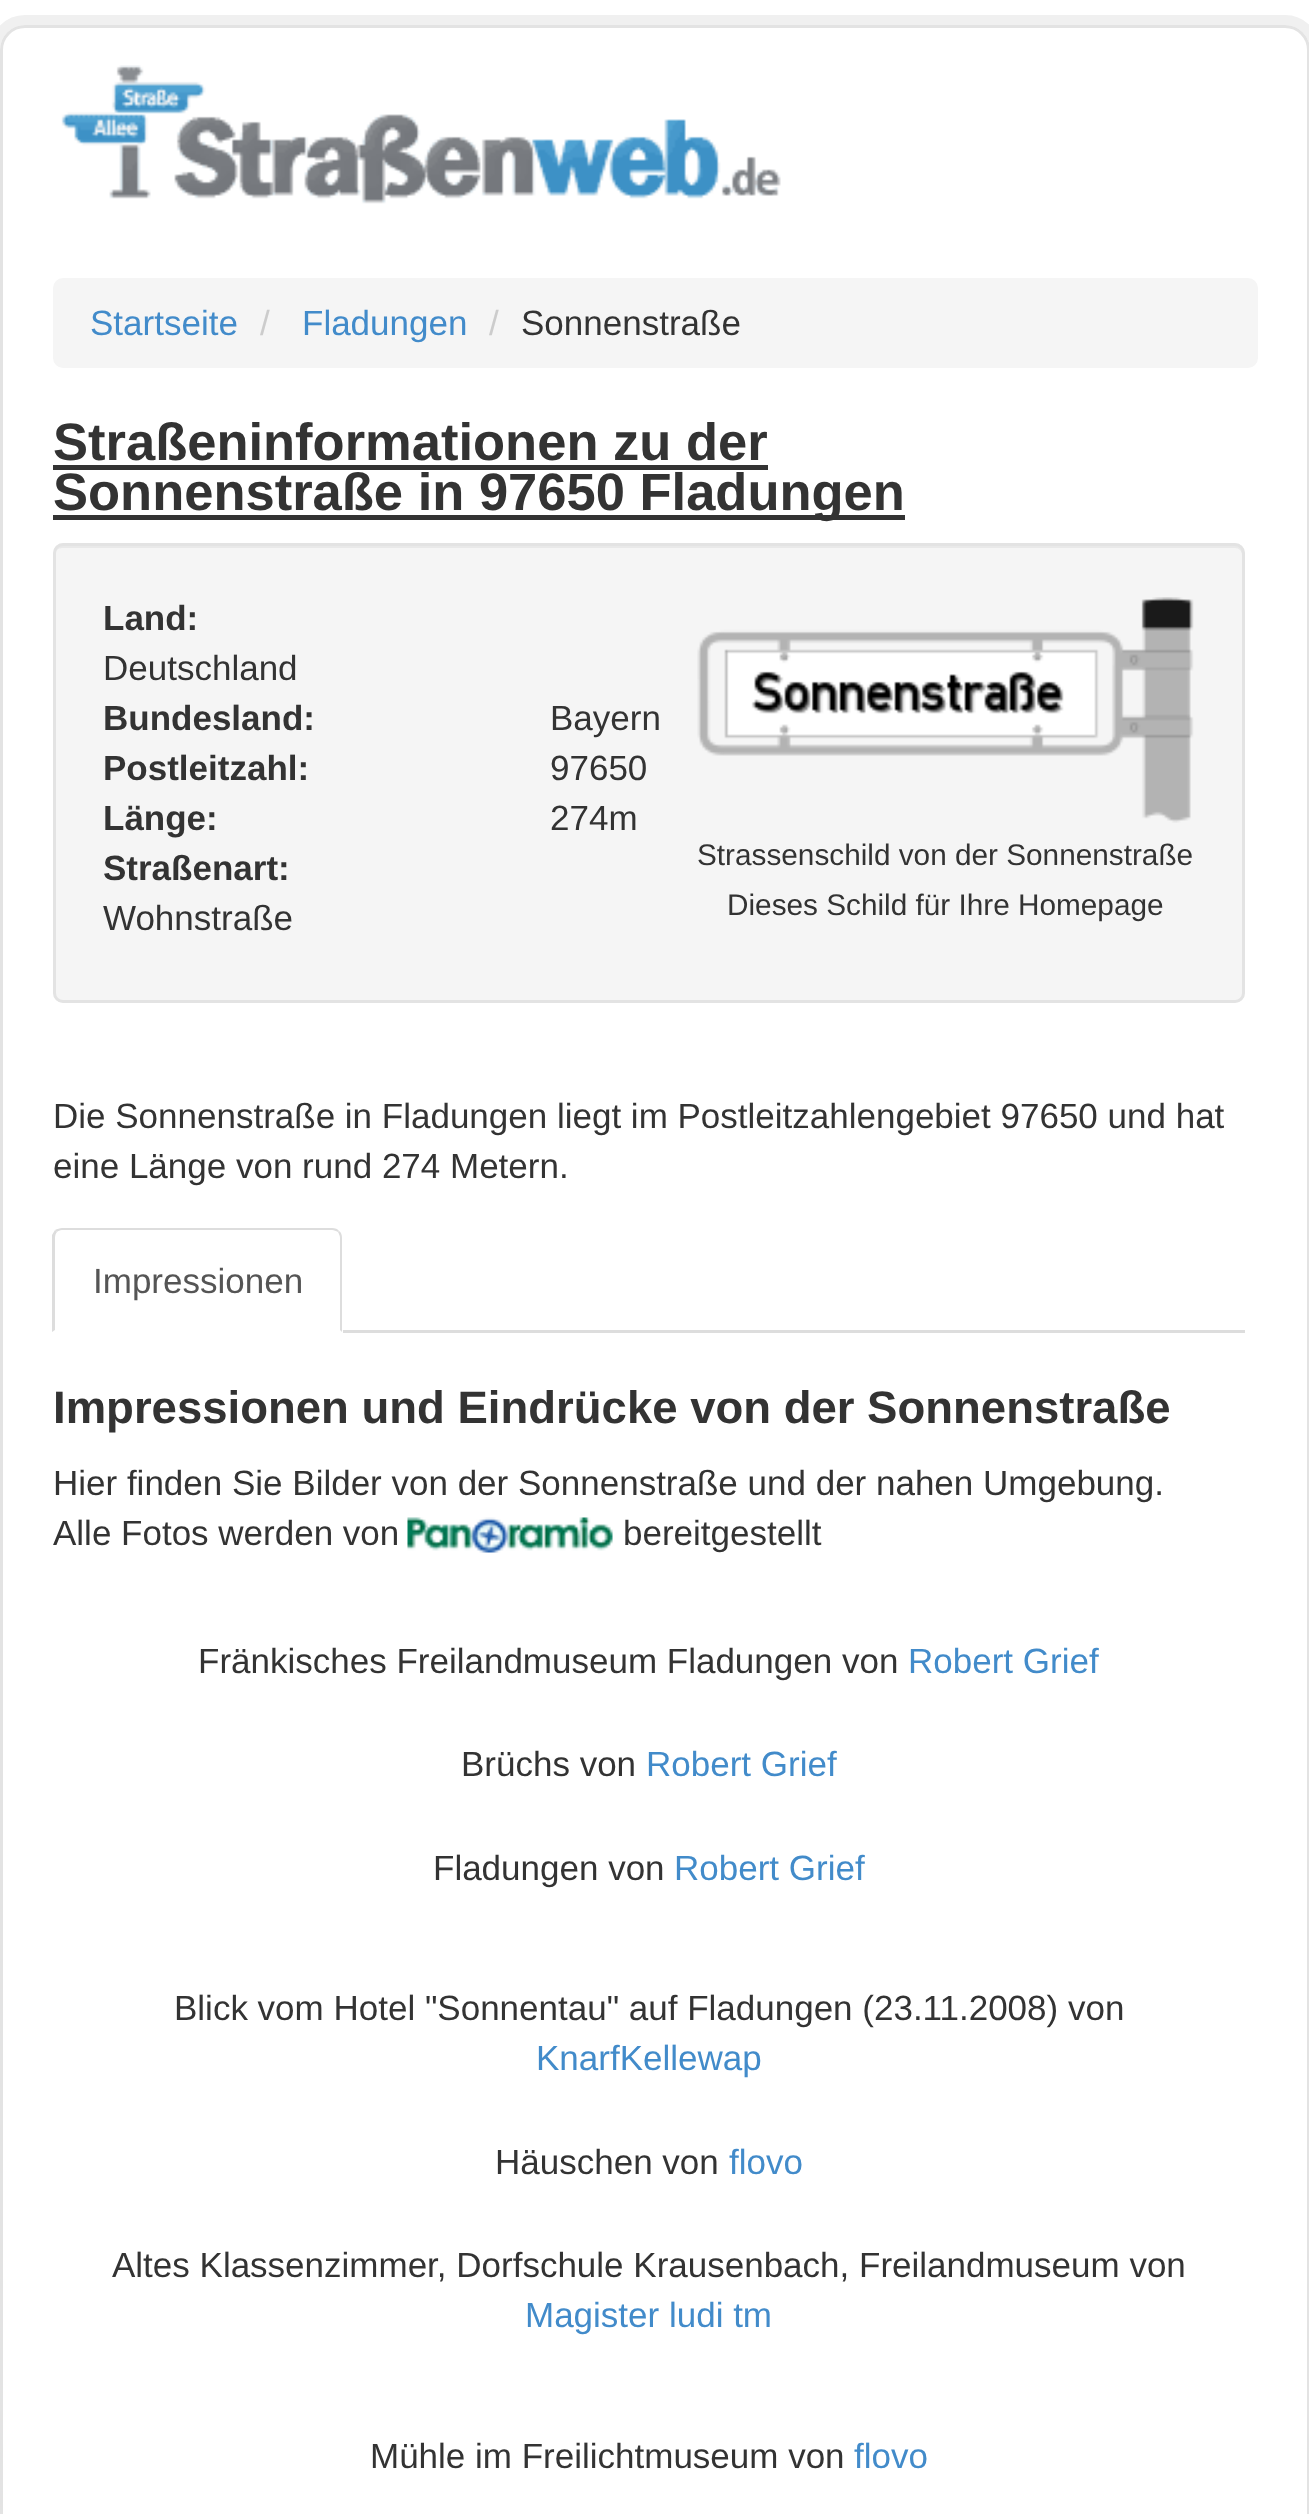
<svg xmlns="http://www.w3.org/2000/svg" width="1309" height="2514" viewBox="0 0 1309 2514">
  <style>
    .t1 { font: 35px Liberation Sans; fill: #428bca; }
    .t2 { font: 35px Liberation Sans; fill: #ccc; }
    .t3 { font: 35px Liberation Sans; fill: #333; }
    .t4 { font: bold 52.5px Liberation Sans; fill: #333; }
    .t5 { font: bold 35px Liberation Sans; fill: #333; }
    .t6 { font: 29.75px Liberation Sans; fill: #333; }
    .t7 { font: 35px Liberation Sans; fill: #555; }
    .t8 { font: bold 45.5px Liberation Sans; fill: #333; }
  </style>
  <rect width="100%" height="100%" fill="#fff"/>
  <rect x="-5" y="20" width="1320" height="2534" rx="30" fill="none" stroke="#f0f0f0" stroke-width="10"/>
  <rect x="1.5" y="26.5" width="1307" height="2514" rx="23.5" fill="none" stroke="#e3e3e3" stroke-width="3"/>
  <image x="61" y="65" width="720" height="139" href="images/1.png"/>
  <rect x="53" y="278" width="1205" height="90" rx="10" fill="#f5f5f5"/>
  <text x="90" y="335" class="t1">Startseite</text>
  <text x="260" y="335" class="t2">/</text>
  <text x="302" y="335" class="t1">Fladungen</text>
  <text x="489" y="335" class="t2">/</text>
  <text x="521" y="335" class="t3">Sonnenstraße</text>
  <text x="53" y="460" class="t4">Straßeninformationen zu der</text>
  <rect x="53" y="465" width="715" height="5" fill="#333"/>
  <rect x="53" y="515" width="852" height="5" fill="#333"/>
  <text x="53" y="510" class="t4">Sonnenstraße in 97650 Fladungen</text>
  <rect x="53" y="543" width="1192" height="460" rx="10" fill="#f5f5f5"/>
  <path d="M62 548H1235C1239 548 1242 551 1242 555V996C1243 995 1243 993 1243 992V553C1243 549 1239 545 1235 545H63C59 545 55 549 55 553V555C55 551 58 548 62 548Z" fill="#e9e9e9"/>
  <rect x="54.5" y="544.5" width="1189" height="457" rx="8.5" fill="none" stroke="#e3e3e3" stroke-width="3"/>
  <text x="103" y="630" class="t5">Land:</text>
  <text x="103" y="680" class="t3">Deutschland</text>
  <text x="103" y="730" class="t5">Bundesland:</text>
  <text x="550" y="730" class="t3">Bayern</text>
  <text x="103" y="780" class="t5">Postleitzahl:</text>
  <text x="550" y="780" class="t3">97650</text>
  <text x="103" y="830" class="t5">Länge:</text>
  <text x="550" y="830" class="t3">274m</text>
  <text x="103" y="880" class="t5">Straßenart:</text>
  <image x="697" y="597" width="497" height="226" href="images/2.png"/>
  <text x="697" y="865" class="t6">Strassenschild von der Sonnenstraße</text>
  <text x="727" y="915" class="t6">Dieses Schild für Ihre Homepage</text>
  <text x="103" y="930" class="t3">Wohnstraße</text>
  <text x="53" y="1128" class="t3">Die Sonnenstraße in Fladungen liegt im Postleitzahlengebiet 97650 und hat</text>
  <text x="53" y="1178" class="t3">eine Länge von rund 274 Metern.</text>
  <rect x="343" y="1330" width="902" height="3" fill="#ddd"/>
  <path d="M62 1228C60 1228 57 1229 55 1230L57 1232C58 1231 60 1230 62 1230H332C334 1230 336 1231 338 1232L339 1231C338 1229 335 1228 332 1228Z" fill="#ddd"/>
  <path d="M342 1332V1238C342 1235 341 1232 339 1231L338 1232C339 1234 340 1236 340 1238V1330Z" fill="#ddd"/>
  <path d="M52 1235C53 1233 54 1232 55 1230L57 1232C56 1233 55 1235 55 1238V1330L52 1332Z" fill="#ddd"/>
  <text x="93" y="1293" class="t7">Impressionen</text>
  <text x="53" y="1423" class="t8">Impressionen und Eindrücke von der Sonnenstraße</text>
  <text x="53" y="1495" class="t3">Hier finden Sie Bilder von der Sonnenstraße und der nahen Umgebung.</text>
  <text x="53" y="1545" class="t3">Alle Fotos werden von</text>
  <image x="407" y="1517" width="206" height="36" href="images/3.png"/>
  <text x="623" y="1545" class="t3">bereitgestellt</text>
  <text x="198" y="1673" class="t3">Fränkisches Freilandmuseum Fladungen von</text>
  <text x="908" y="1673" class="t1">Robert Grief</text>
  <text x="461" y="1776" class="t3">Brüchs von</text>
  <text x="646" y="1776" class="t1">Robert Grief</text>
  <text x="433" y="1880" class="t3">Fladungen von</text>
  <text x="674" y="1880" class="t1">Robert Grief</text>
  <text x="174" y="2020" class="t3">Blick vom Hotel "Sonnentau" auf Fladungen (23.11.2008) von</text>
  <text x="536" y="2070" class="t1">KnarfKellewap</text>
  <text x="495" y="2174" class="t3">Häuschen von</text>
  <text x="729" y="2174" class="t1">flovo</text>
  <text x="112" y="2277" class="t3">Altes Klassenzimmer, Dorfschule Krausenbach, Freilandmuseum von</text>
  <text x="525" y="2327" class="t1">Magister ludi tm</text>
  <text x="370" y="2468" class="t3">Mühle im Freilichtmuseum von</text>
  <text x="854" y="2468" class="t1">flovo</text>
</svg>
